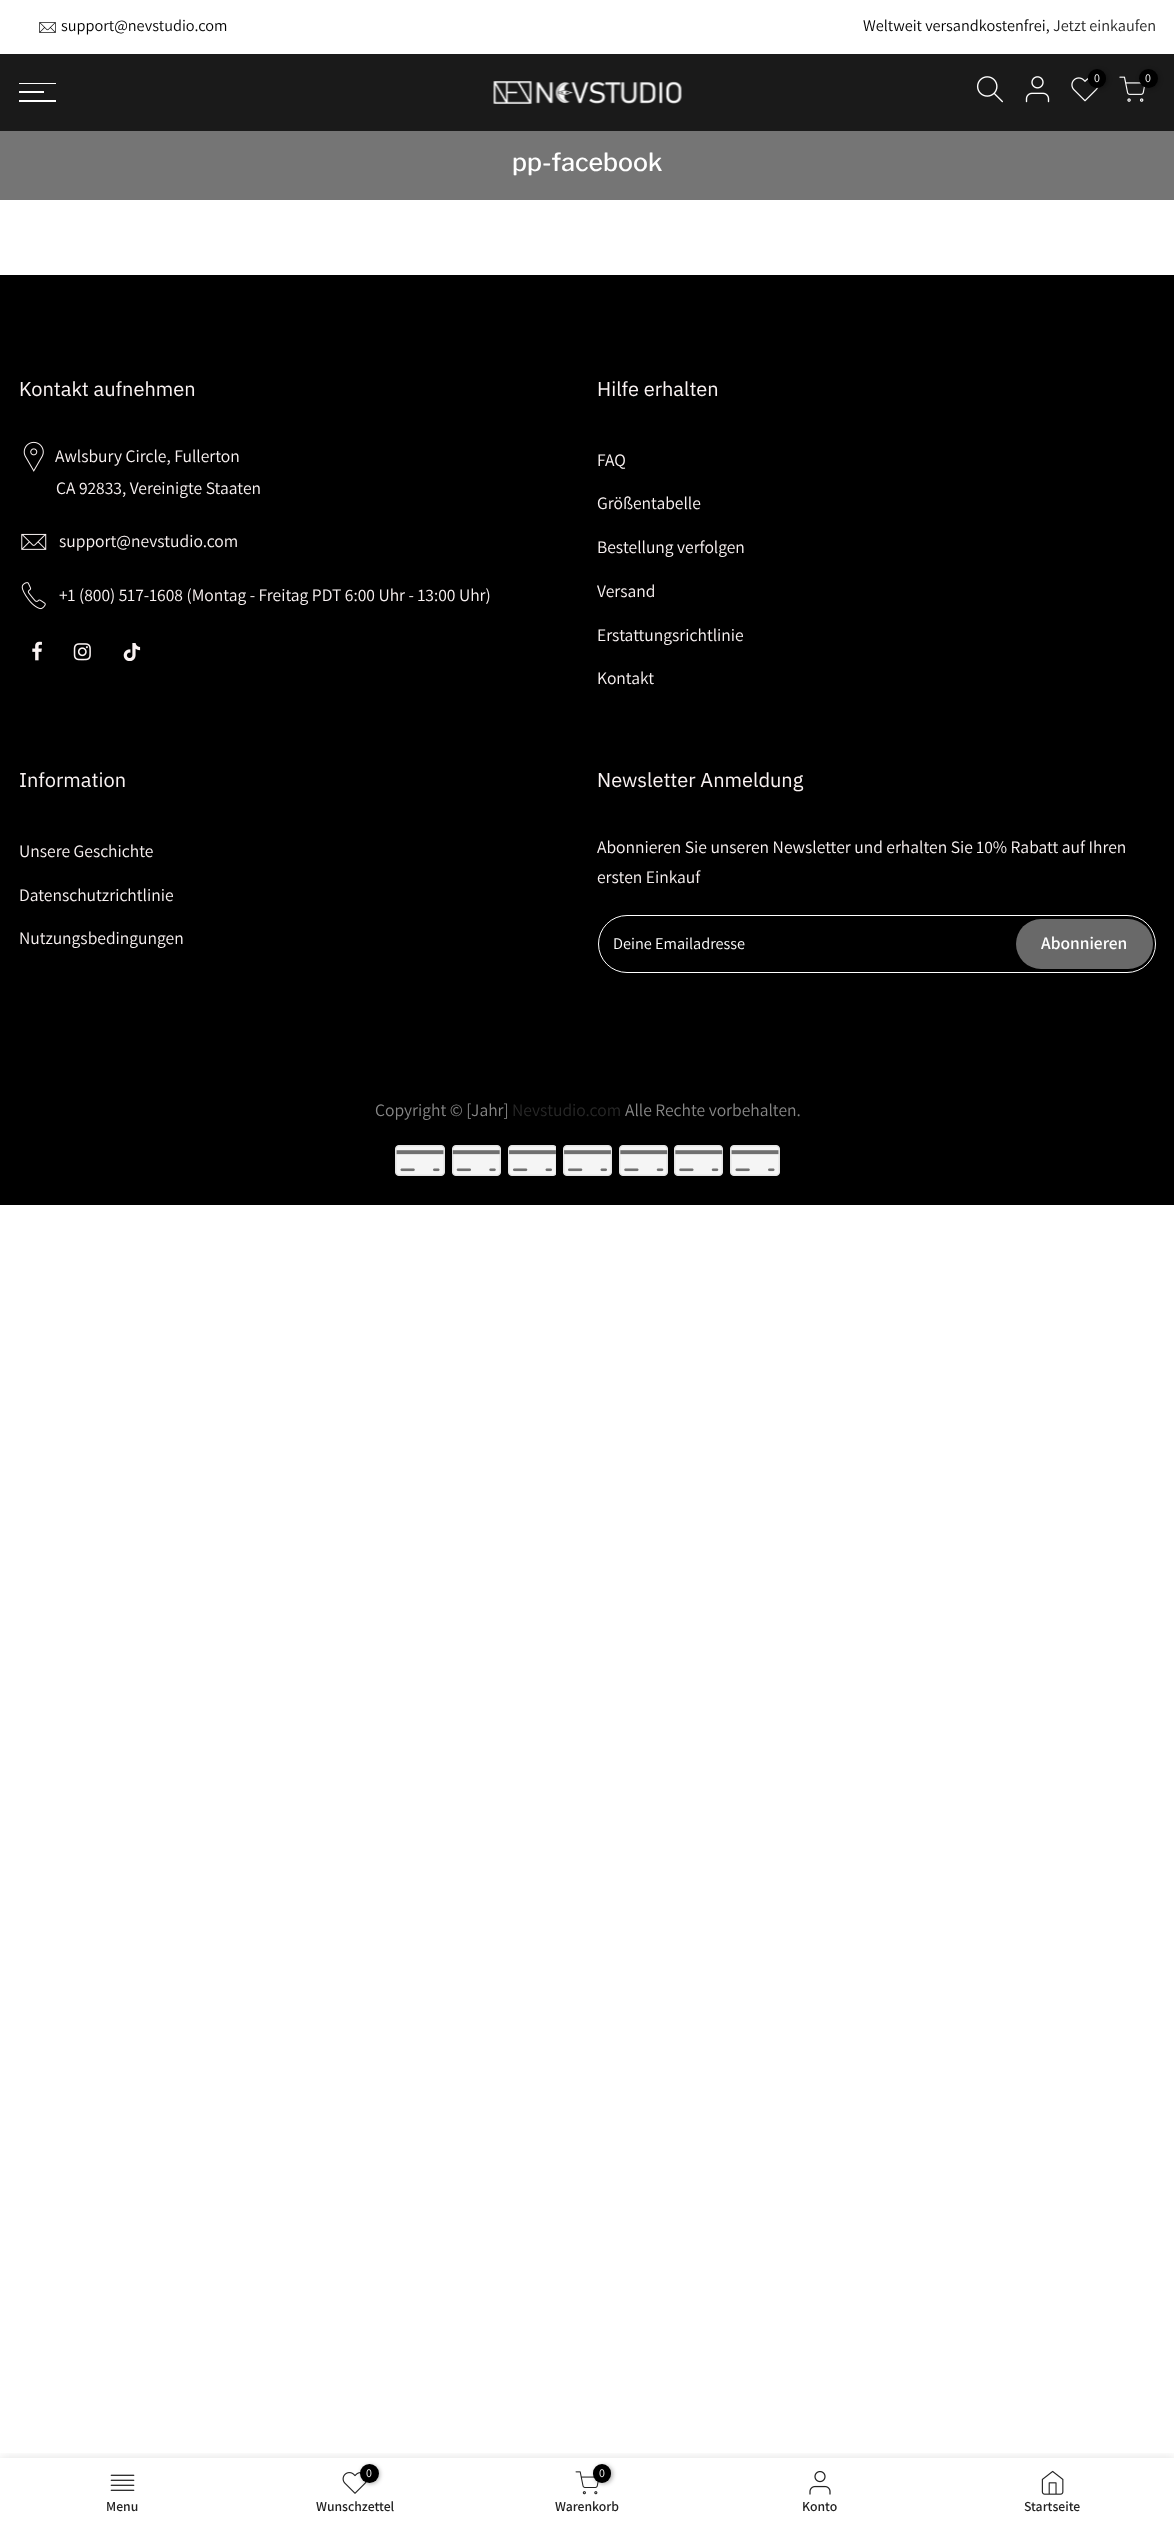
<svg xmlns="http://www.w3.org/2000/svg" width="1174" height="2526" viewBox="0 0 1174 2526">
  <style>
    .t1 { font: 16.25px Assistant; fill: #000; }
    .t2 { font: 16.25px Assistant; fill: #222; }
    .t3 { font: 12px Assistant; fill: #fff; }
    .t4 { font: 500 25px Libre Franklin; fill: #fff; }
    .t5 { font: 20px IBM Plex Sans; fill: #faf3f3; }
    .t6 { font: 17.5px Assistant; fill: #faf3f3; }
    .t7 { font: 16.25px Assistant; fill: #fff; }
    .t8 { font: 600 17.5px Assistant; fill: #fff; }
    .t9 { font: 17.5px Assistant; fill: #878787; }
    .t10 { font: 17.5px Assistant; fill: #282828; }
    .t11 { font: 600 13.75px Assistant; fill: #222; }
  </style>
  <defs>
    <clipPath id="clip1"><rect x="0" y="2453" width="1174" height="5"/></clipPath>
  </defs>
  <rect width="100%" height="100%" fill="#fff"/>
  <image x="39" y="22" width="17" height="11" href="images/1.png"/>
  <text x="61" y="31" class="t1">support@nevstudio.com</text>
  <text x="863" y="31" class="t1">Weltweit versandkostenfrei,</text>
  <text x="1053" y="31" class="t2">Jetzt einkaufen</text>
  <rect x="0" y="54" width="1174" height="77" fill="#1a1a1a"/>
  <image x="976" y="76" width="27" height="27" href="images/2.png"/>
  <image x="1025" y="76" width="25" height="27" href="images/3.png"/>
  <image x="1071" y="77" width="28" height="25" href="images/4.png"/>
  <rect x="1089" y="70" width="19" height="19" rx="9.5" fill="#0000004d" filter="blur(2px)"/>
  <rect x="1088" y="69" width="18" height="19" rx="9" fill="#000"/>
  <text x="1094" y="82" class="t3">0</text>
  <image x="1119" y="76" width="26" height="26" href="images/5.png"/>
  <rect x="1140" y="70" width="19" height="19" rx="9.5" fill="#0000004d" filter="blur(2px)"/>
  <circle cx="1148.5" cy="78.5" r="9.5" fill="#000"/>
  <text x="1145" y="82" class="t3">0</text>
  <rect x="19" y="83" width="37" height="1" fill="#fff"/>
  <rect x="19" y="91" width="25" height="2" fill="#fff"/>
  <rect x="19" y="100" width="37" height="2" fill="#fff"/>
  <image x="493" y="81" width="189" height="23" href="images/6.png"/>
  <rect x="0" y="131" width="1174" height="69" fill="#757575"/>
  <text x="512" y="171" class="t4">pp-facebook</text>
  <rect x="0" y="275" width="1174" height="930" fill="#000"/>
  <text x="19" y="396" class="t5">Kontakt aufnehmen</text>
  <image x="23" y="441" width="21" height="31" href="images/7.png"/>
  <text x="55" y="462" class="t6">Awlsbury Circle, Fullerton</text>
  <text x="56" y="494" class="t6">CA 92833, Vereinigte Staaten</text>
  <image x="21" y="533" width="26" height="17" href="images/8.png"/>
  <text x="59" y="547" class="t6">support@nevstudio.com</text>
  <image x="21" y="582" width="25" height="28" href="images/9.png"/>
  <text x="59" y="601" class="t6">+1 (800) 517-1608 (Montag - Freitag PDT 6:00 Uhr - 13:00 Uhr)</text>
  <image x="32" y="641" width="10" height="20" href="images/10.png"/>
  <image x="73" y="643" width="18" height="18" href="images/11.png"/>
  <image x="123" y="643" width="18" height="18" href="images/12.png"/>
  <text x="597" y="396" class="t5">Hilfe erhalten</text>
  <text x="597" y="466" class="t6">FAQ</text>
  <text x="597" y="509" class="t6">Größentabelle</text>
  <text x="597" y="553" class="t6">Bestellung verfolgen</text>
  <text x="597" y="597" class="t6">Versand</text>
  <text x="597" y="641" class="t6">Erstattungsrichtlinie</text>
  <text x="597" y="684" class="t6">Kontakt</text>
  <text x="19" y="787" class="t5">Information</text>
  <text x="19" y="857" class="t6">Unsere Geschichte</text>
  <text x="19" y="901" class="t6">Datenschutzrichtlinie</text>
  <text x="19" y="944" class="t6">Nutzungsbedingungen</text>
  <text x="597" y="787" class="t5">Newsletter Anmeldung</text>
  <text x="597" y="853" class="t6">Abonnieren Sie unseren Newsletter und erhalten Sie 10% Rabatt auf Ihren</text>
  <text x="597" y="883" class="t6">ersten Einkauf</text>
  <rect x="598.5" y="915.5" width="557" height="57" rx="28.5" fill="none" stroke="#fff"/>
  <text x="613" y="949" class="t7">Deine Emailadresse</text>
  <rect x="1016" y="919" width="137" height="50" rx="25" fill="#696969"/>
  <text x="1041" y="949" class="t8">Abonnieren</text>
  <text x="375" y="1116" class="t9">Copyright © [Jahr]</text>
  <text x="512" y="1116" class="t10">Nevstudio.com</text>
  <text x="625" y="1116" class="t9">Alle Rechte vorbehalten.</text>
  <image x="395" y="1145" width="50" height="31" href="images/13.png"/>
  <image x="452" y="1145" width="49" height="31" href="images/14.png"/>
  <image x="508" y="1145" width="48" height="31" href="images/15.png"/>
  <image x="563" y="1145" width="49" height="31" href="images/16.png"/>
  <image x="619" y="1145" width="49" height="31" href="images/17.png"/>
  <image x="674" y="1145" width="49" height="31" href="images/17.png"/>
  <image x="730" y="1145" width="50" height="31" href="images/13.png"/>
  <g clip-path="url(#clip1)">
    <rect x="0" y="2458" width="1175" height="68" fill="#0000001f" filter="blur(5.5px)"/>
  </g>
  <image x="110" y="2474" width="25" height="17" href="images/18.png"/>
  <text x="106" y="2511" class="t11">Menu</text>
  <image x="342" y="2472" width="25" height="22" href="images/19.png"/>
  <rect x="361" y="2465" width="19" height="19" rx="9.5" fill="#0000004d" filter="blur(2px)"/>
  <circle cx="369.5" cy="2473.5" r="9.5" fill="#000"/>
  <text x="366" y="2477" class="t3">0</text>
  <text x="316" y="2511" class="t11">Wunschzettel</text>
  <image x="575" y="2471" width="24" height="24" href="images/20.png"/>
  <rect x="594" y="2465" width="19" height="19" rx="9.5" fill="#0000004d" filter="blur(2px)"/>
  <rect x="593" y="2464" width="18" height="19" rx="9" fill="#000"/>
  <text x="599" y="2477" class="t3">0</text>
  <text x="555" y="2511" class="t11">Warenkorb</text>
  <image x="809" y="2471" width="22" height="24" href="images/21.png"/>
  <text x="802" y="2511" class="t11">Konto</text>
  <image x="1041" y="2470" width="23" height="25" href="images/22.png"/>
  <text x="1024" y="2511" class="t11">Startseite</text>
</svg>
